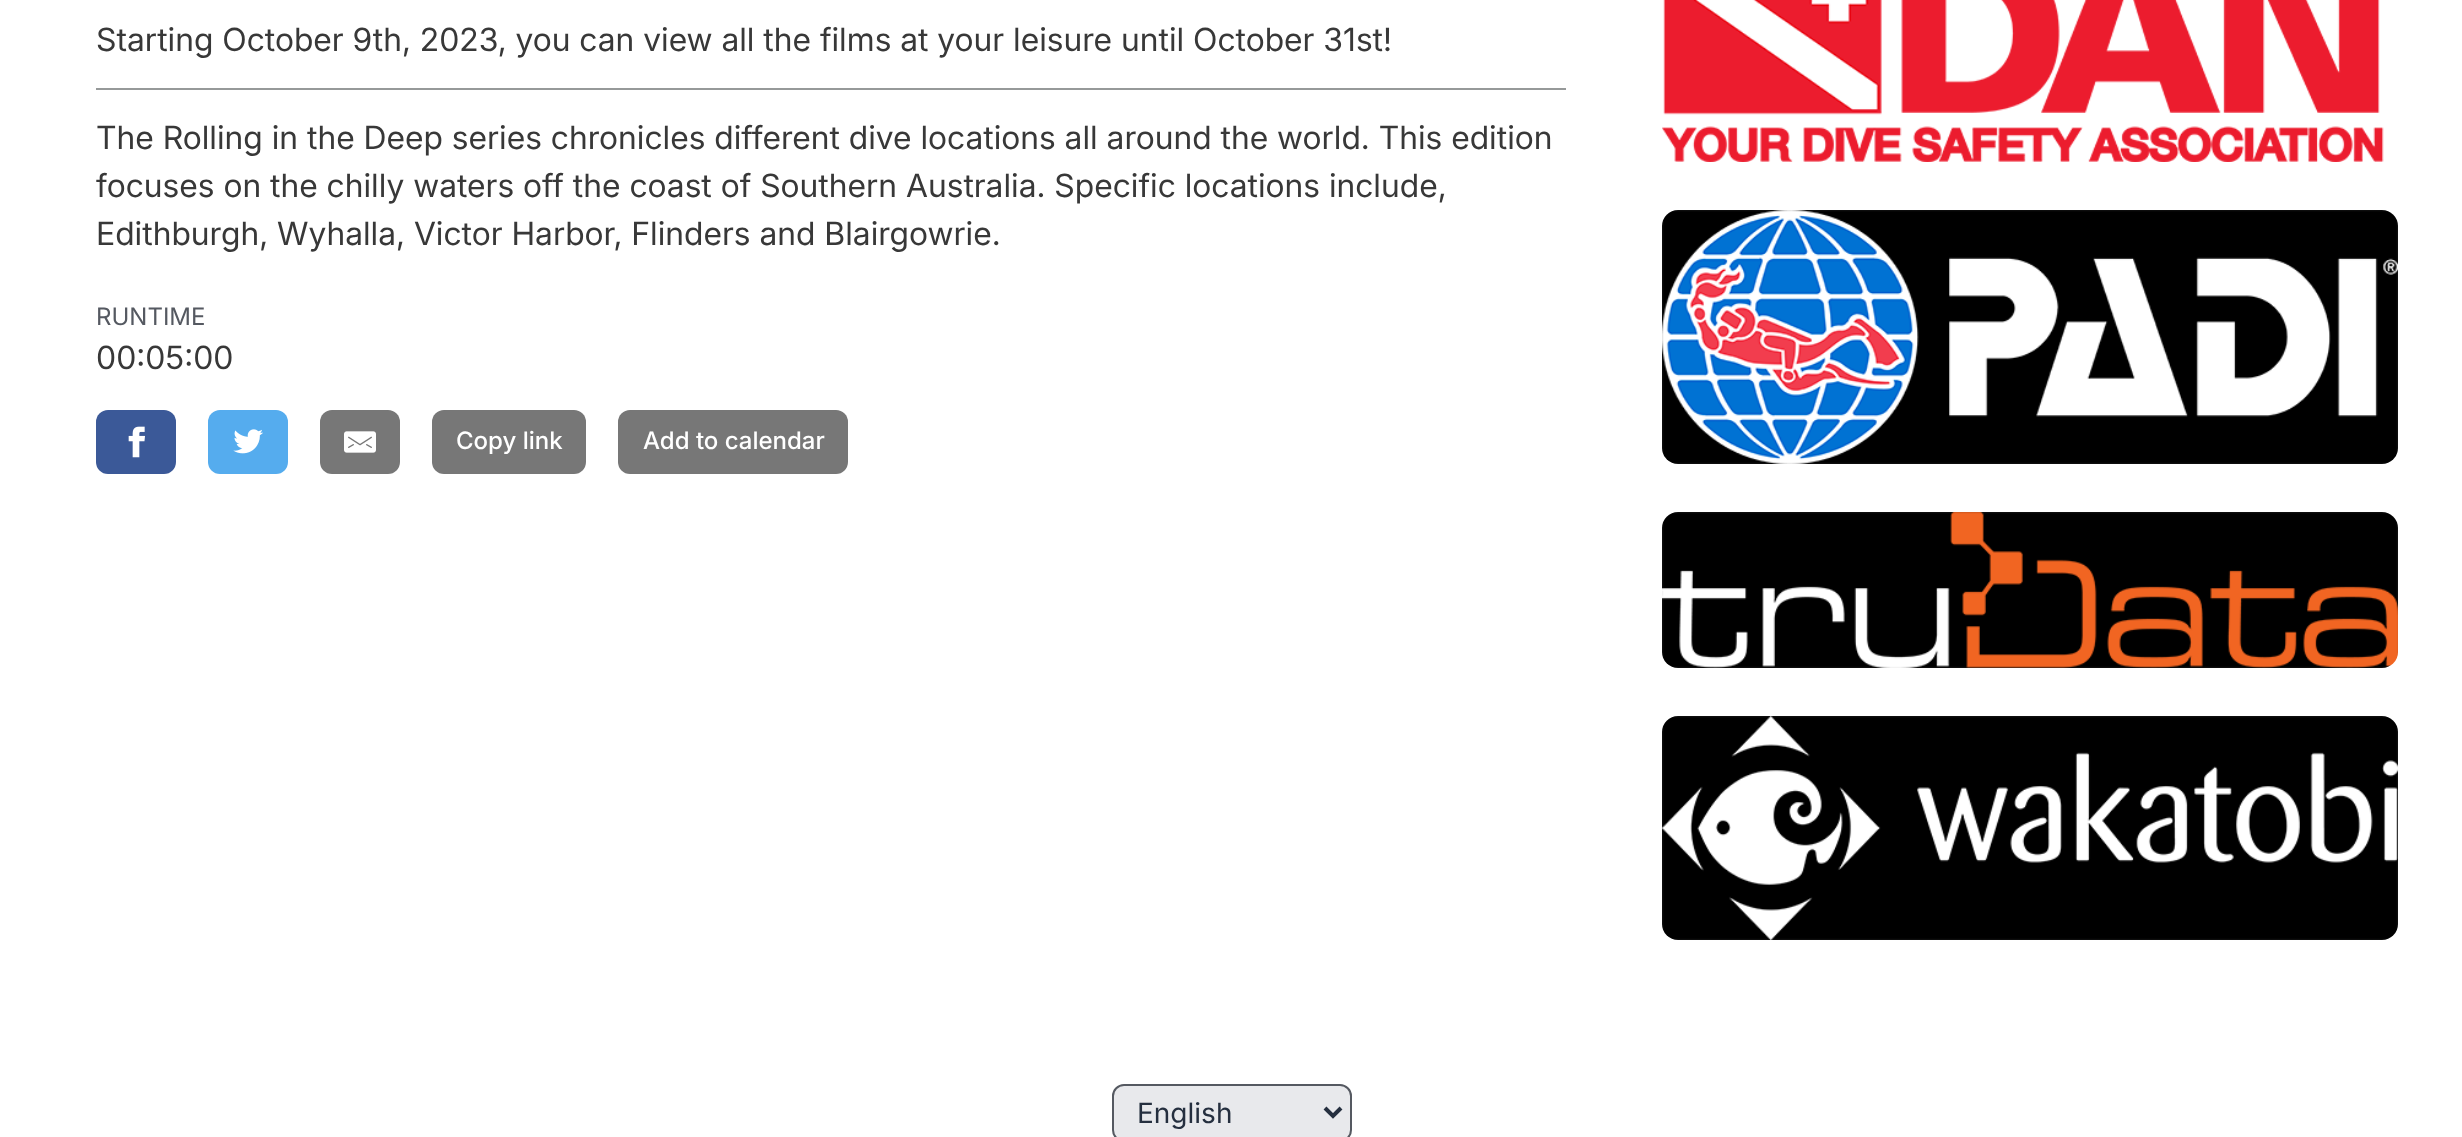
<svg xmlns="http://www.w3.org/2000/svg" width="2462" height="1137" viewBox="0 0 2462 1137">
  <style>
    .t1 { font: 32px Inter; fill: #383838; }
    .t2 { font: 24px 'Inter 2'; fill: #555961; }
    .t3 { font: 500 24px Inter; fill: #fff; }
    .t4 { font: 28px 'Inter 2'; fill: #252f3f; }
  </style>
  <rect width="100%" height="100%" fill="#fff"/>
  <rect x="96" y="88" width="1470" height="2" fill="#969999"/>
  <text x="96" y="51" class="t1">Starting October 9th, 2023, you can view all the films at your leisure until October 31st!</text>
  <text x="96" y="149" class="t1">The Rolling in the Deep series chronicles different dive locations all around the world. This edition</text>
  <text x="96" y="197" class="t1">focuses on the chilly waters off the coast of Southern Australia. Specific locations include,</text>
  <text x="96" y="245" class="t1">Edithburgh, Wyhalla, Victor Harbor, Flinders and Blairgowrie.</text>
  <text x="96" y="325" class="t2">RUNTIME</text>
  <text x="96" y="369" class="t1">00:05:00</text>
  <rect x="96" y="410" width="80" height="64" rx="12" fill="#3b5998"/>
  <image x="128" y="426" width="17" height="32" href="images/1.png"/>
  <rect x="208" y="410" width="80" height="64" rx="12" fill="#55acee"/>
  <image x="233" y="429" width="30" height="25" href="images/2.png"/>
  <rect x="320" y="410" width="80" height="64" rx="12" fill="#777"/>
  <image x="344" y="431" width="32" height="22" href="images/3.png"/>
  <rect x="432" y="410" width="154" height="64" rx="12" fill="#777"/>
  <text x="456" y="449" class="t3">Copy link</text>
  <rect x="618" y="410" width="230" height="64" rx="12" fill="#777"/>
  <text x="643" y="449" class="t3">Add to calendar</text>
  <image x="1662" y="0" width="722" height="162" href="images/4.png"/>
  <image x="1662" y="210" width="736" height="254" href="images/5.png"/>
  <image x="1662" y="512" width="736" height="156" href="images/6.png"/>
  <image x="1662" y="716" width="736" height="224" href="images/7.png"/>
  <rect x="1113" y="1085" width="238" height="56" rx="11" fill="#e8e9ec" stroke="#555961" stroke-width="2"/>
  <path d="M1325 1108L1333 1116L1341 1108" fill="none" stroke="#252f3f" stroke-width="4"/>
  <text x="1137" y="1123" class="t4">English</text>
</svg>
